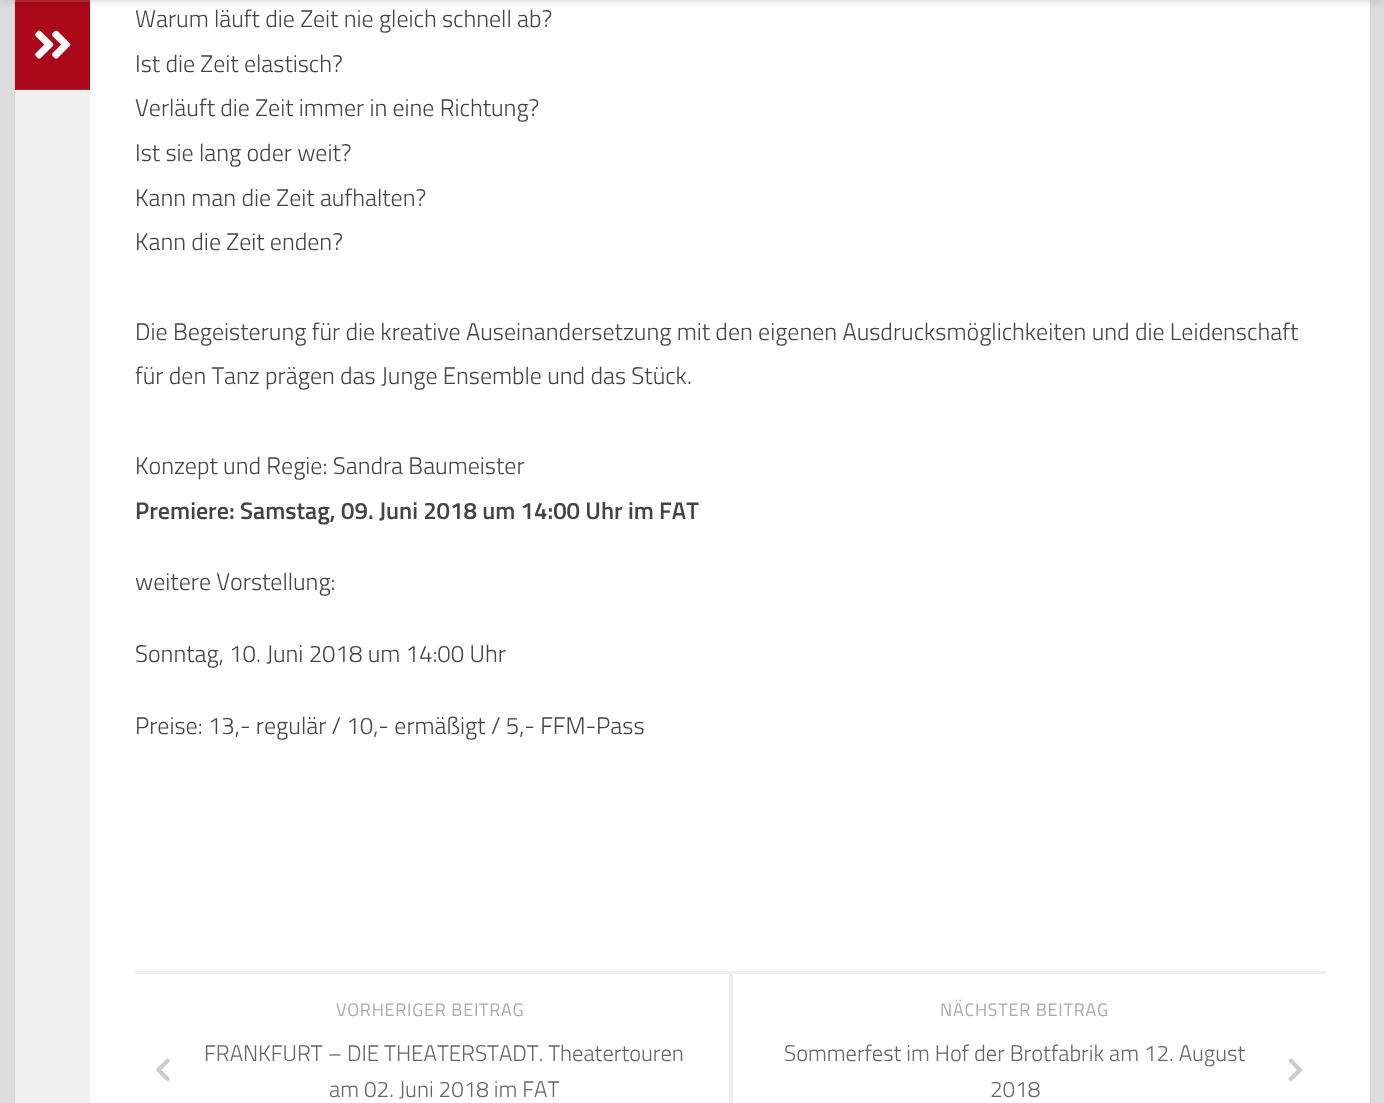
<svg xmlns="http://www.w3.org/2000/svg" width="1384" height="1103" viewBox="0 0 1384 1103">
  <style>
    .t1 { font: 300 24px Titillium; fill: #444; }
    .t2 { font: 600 24px Titillium; fill: #444; }
    .t3 { font: 18px Titillium; letter-spacing: 0.75px; fill: #aaa; }
    .t4 { font: 300 22.5px Titillium; fill: #666; }
  </style>
  <rect width="100%" height="100%" fill="#ddd"/>
  <rect x="15" y="-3" width="1355" height="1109" fill="#0000001a" filter="blur(1px)"/>
  <rect x="90" y="0" width="1280" height="1103" fill="#fff"/>
  <rect x="15" y="0" width="75" height="89" fill="#ab0819"/>
  <path d="M0 0V2H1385V-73H1384V0Z" fill="#ffffff26"/>
  <rect x="0" y="-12" width="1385" height="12" fill="#00000033" filter="blur(4px)"/>
  <rect x="15" y="91" width="75" height="1012" fill="#f0f0f0"/>
  <rect x="15" y="90" width="75" height="1" fill="#f2f2f2"/>
  <rect x="15" y="89" width="75" height="1" fill="#b32130"/>
  <image x="35" y="30" width="36" height="29" href="images/1.png"/>
  <text x="135" y="27" class="t1">Warum läuft die Zeit nie gleich schnell ab?</text>
  <text x="135" y="72" class="t1">Ist die Zeit elastisch?</text>
  <text x="135" y="116" class="t1">Verläuft die Zeit immer in eine Richtung?</text>
  <text x="135" y="161" class="t1">Ist sie lang oder weit?</text>
  <text x="135" y="206" class="t1">Kann man die Zeit aufhalten?</text>
  <text x="135" y="250" class="t1">Kann die Zeit enden?</text>
  <text x="135" y="340" class="t1">Die Begeisterung für die kreative Auseinandersetzung mit den eigenen Ausdrucksmöglichkeiten und die Leidenschaft</text>
  <text x="135" y="384" class="t1">für den Tanz prägen das Junge Ensemble und das Stück.</text>
  <text x="135" y="474" class="t1">Konzept und Regie: Sandra Baumeister</text>
  <text x="135" y="519" class="t2">Premiere: Samstag, 09. Juni 2018 um 14:00 Uhr im FAT</text>
  <text x="135" y="590" class="t1">weitere Vorstellung:</text>
  <text x="135" y="662" class="t1">Sonntag, 10. Juni 2018 um 14:00 Uhr</text>
  <text x="135" y="734" class="t1">Preise: 13,- regulär / 10,- ermäßigt / 5,- FFM-Pass</text>
  <rect x="135" y="971" width="1190" height="3" fill="#eee"/>
  <path d="M137 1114V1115H732V974H730V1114Z" fill="#eee"/>
  <text x="336" y="1016" class="t3">VORHERIGER BEITRAG</text>
  <text x="204" y="1061" class="t4">FRANKFURT – DIE THEATERSTADT. Theatertouren</text>
  <image x="156" y="1058" width="14" height="24" href="images/2.png"/>
  <text x="329" y="1097" class="t4">am 02. Juni 2018 im FAT</text>
  <path d="M729 974V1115H1323V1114H730V974Z" fill="#eee"/>
  <rect x="732" y="974" width="1" height="129" fill="#eee"/>
  <text x="940" y="1016" class="t3">NÄCHSTER BEITRAG</text>
  <text x="784" y="1061" class="t4">Sommerfest im Hof der Brotfabrik am 12. August</text>
  <image x="1288" y="1058" width="15" height="24" href="images/3.png"/>
  <text x="990" y="1097" class="t4">2018</text>
</svg>
